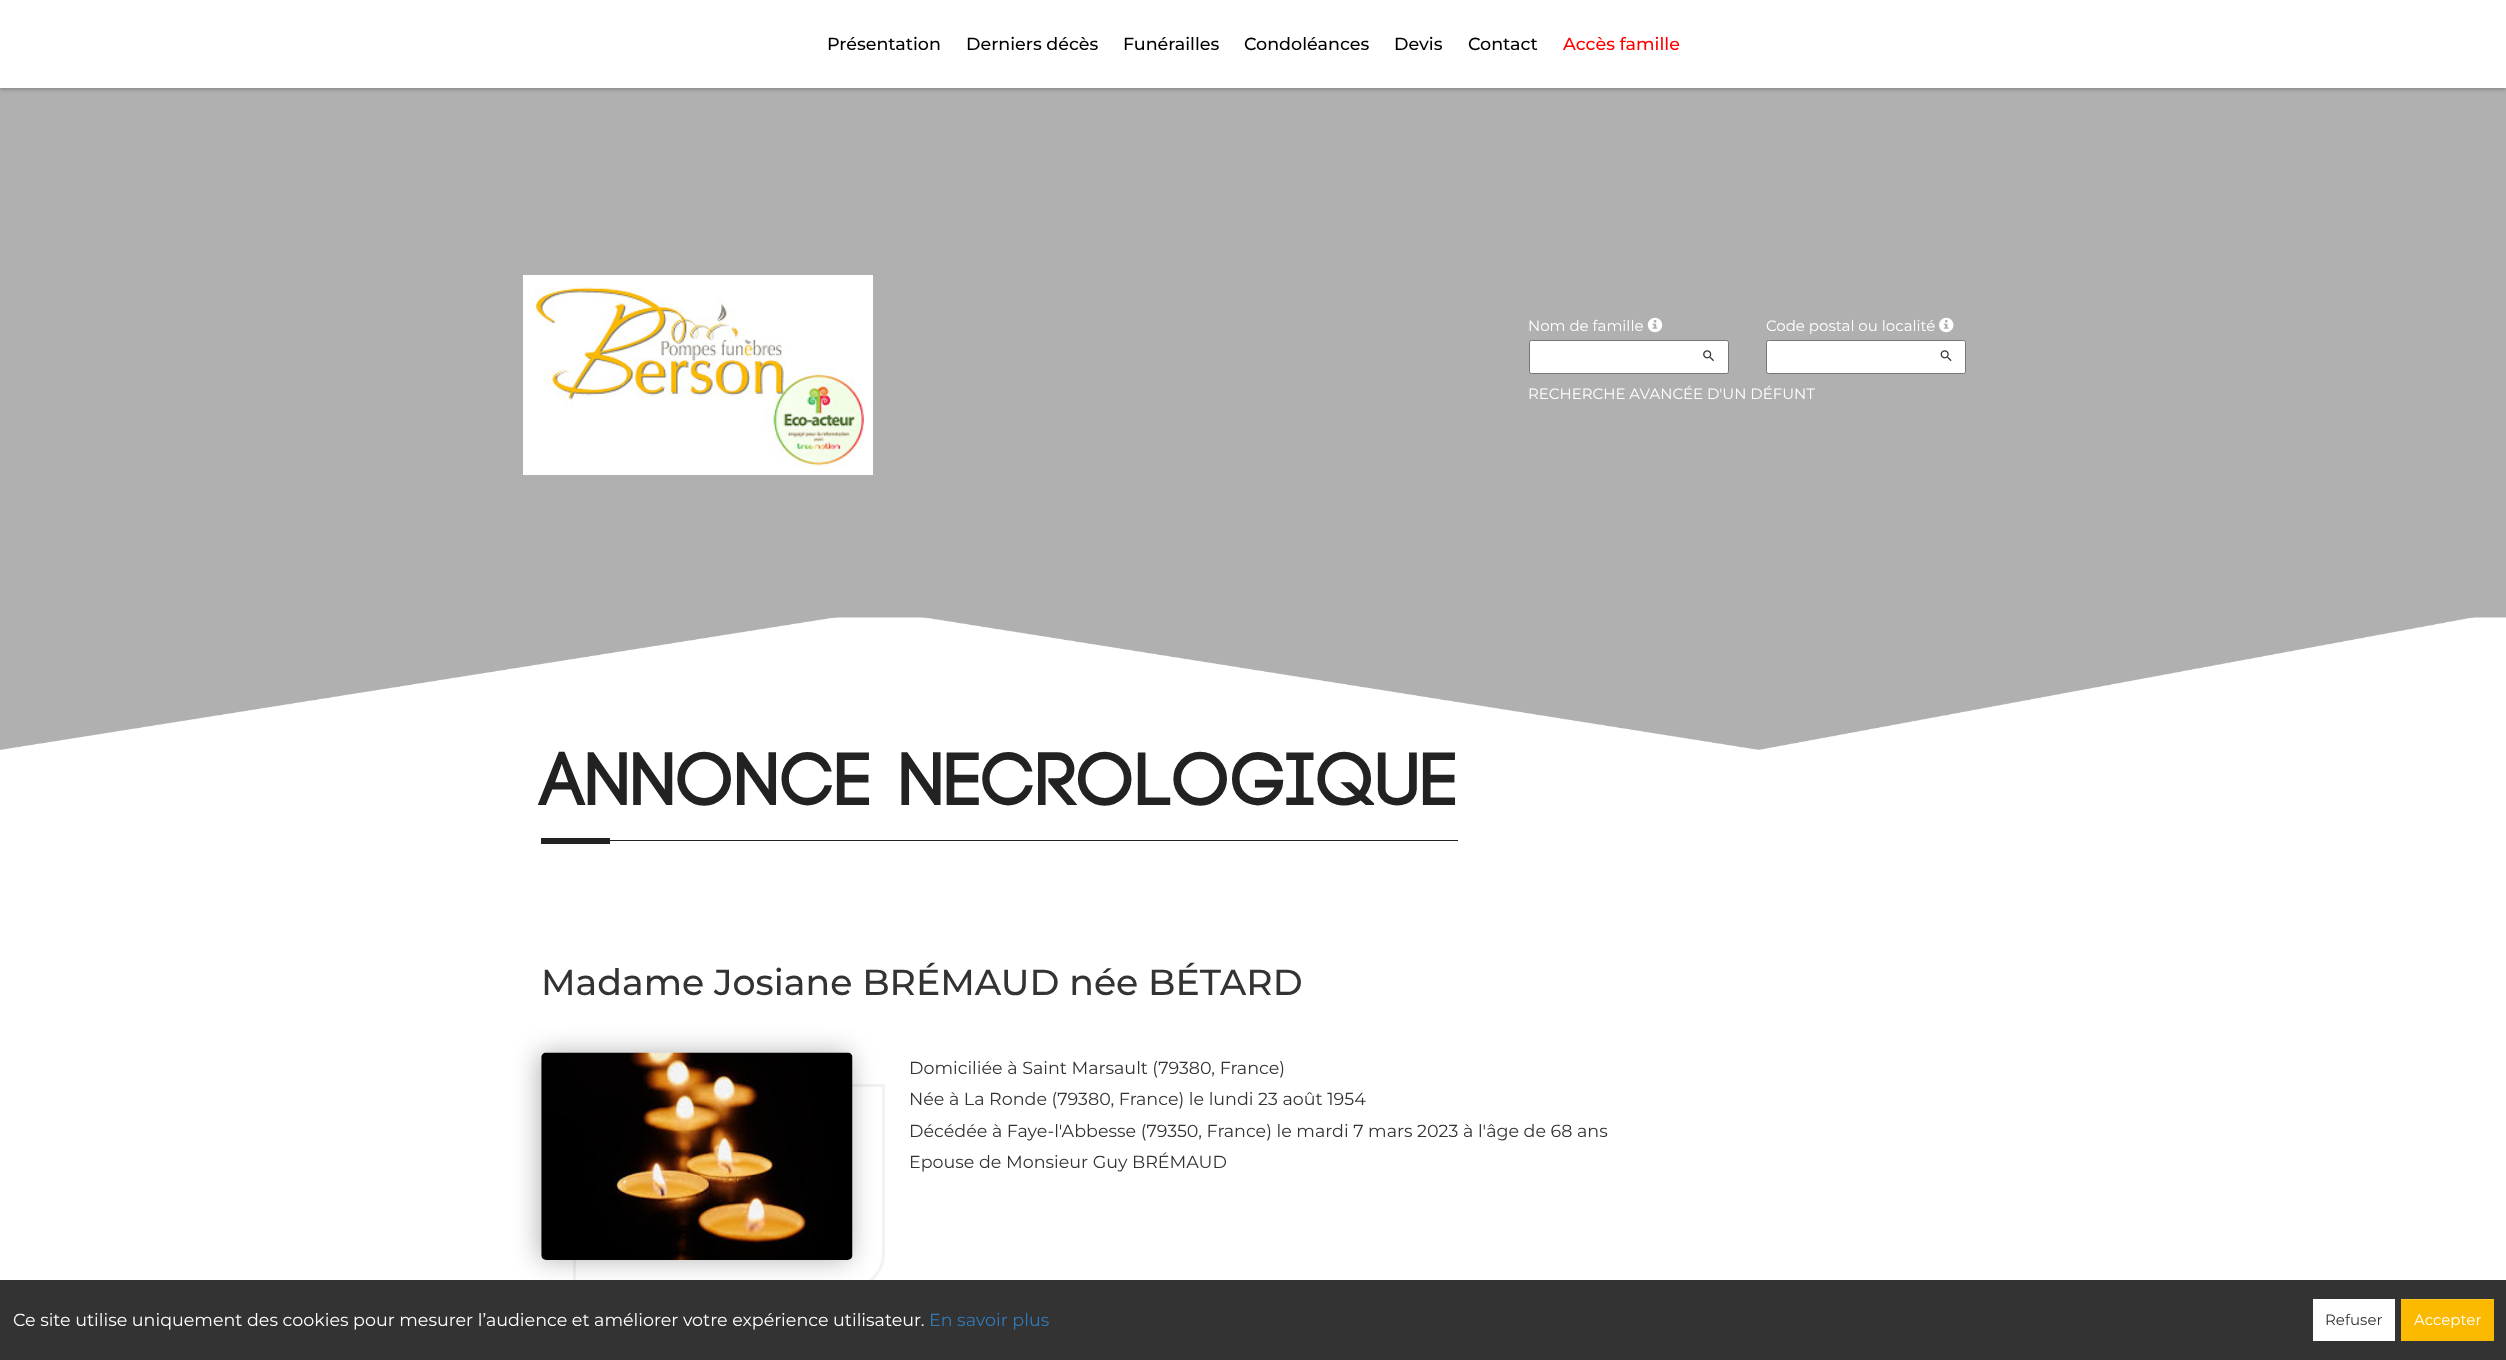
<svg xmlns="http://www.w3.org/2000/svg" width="2506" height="1360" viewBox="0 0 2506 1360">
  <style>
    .t1 { font: 100 17.5px Montserrat; fill: #000; }
    .t2 { font: 100 17.5px Montserrat; fill: #f00; }
    .t3 { font: 100 15px 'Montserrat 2'; fill: #fff; }
    .t4 { font: bold 75.25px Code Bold; letter-spacing: 1.25px; fill: #222; }
    .t5 { font: 100 36.25px Montserrat; fill: #333; }
    .t6 { font: 100 17.5px 'Montserrat 2'; fill: #333; }
    .t7 { font: 100 17.5px 'Montserrat 2'; fill: #fff; }
    .t8 { font: 100 17.5px 'Montserrat 2'; fill: #337ab7; }
    .t9 { font: 100 15px 'Montserrat 2'; fill: #333; }
  </style>
  <rect width="100%" height="100%" fill="#fff"/>
  <rect x="0" y="88" width="2506" height="662" fill="#b0b0b0"/>
  <rect x="0" y="1" width="2506" height="88" fill="#0000004d" filter="blur(2px)"/>
  <rect x="0" y="0" width="2506" height="88" fill="#fff"/>
  <text x="827" y="50" class="t1">Présentation</text>
  <text x="966" y="50" class="t1">Derniers décès</text>
  <text x="1123" y="50" class="t1">Funérailles</text>
  <text x="1244" y="50" class="t1">Condoléances</text>
  <text x="1394" y="50" class="t1">Devis</text>
  <text x="1468" y="50" class="t1">Contact</text>
  <text x="1563" y="50" class="t2">Accès famille</text>
  <rect x="523" y="275" width="350" height="200" fill="#fff"/>
  <image x="535" y="287" width="330" height="180" href="images/1.png"/>
  <text x="1528" y="331" class="t3">Nom de famille</text>
  <image x="1647" y="317" width="16" height="16" href="images/2.png"/>
  <rect x="1529.5" y="340.5" width="199" height="33" rx="2" fill="#fff" stroke="#767676"/>
  <image x="1703" y="350" width="11" height="12" href="images/3.png"/>
  <text x="1766" y="331" class="t3">Code postal ou localité</text>
  <image x="1939" y="317" width="15" height="16" href="images/4.png"/>
  <rect x="1766.5" y="340.5" width="199" height="33" rx="2" fill="#fff" stroke="#767676"/>
  <image x="1940" y="350" width="12" height="12" href="images/5.png"/>
  <text x="1528" y="399" class="t3">RECHERCHE AVANCÉE D'UN DÉFUNT</text>
  <text x="541" y="805" class="t4">Annonce nécrologique</text>
  <rect x="541" y="838" width="69" height="6" fill="#222"/>
  <rect x="610" y="840" width="848" height="1" fill="#222"/>
  <image x="0" y="617" width="2506" height="133" href="images/6.png"/>
  <text x="541" y="995" class="t5">Madame Josiane BRÉMAUD née BÉTARD</text>
  <path d="M574.5 1085.5H883.5V1253C883.5 1273 867 1289.5 847 1289.5H574.5Z" fill="none" stroke="#f3f2f2" stroke-width="3"/>
  <rect x="539" y="1053" width="311" height="207" rx="5" fill="#0000004d" filter="blur(13px)"/>
  <image x="541" y="1052" width="312" height="208" href="images/7.png"/>
  <text x="909" y="1074" class="t6">Domiciliée à Saint Marsault (79380, France)</text>
  <text x="909" y="1105" class="t6">Née à La Ronde (79380, France) le lundi 23 août 1954</text>
  <text x="909" y="1137" class="t6">Décédée à Faye-l'Abbesse (79350, France) le mardi 7 mars 2023 à l'âge de 68 ans</text>
  <text x="909" y="1168" class="t6">Epouse de Monsieur Guy BRÉMAUD</text>
  <rect x="0" y="1280" width="2506" height="80" fill="#333"/>
  <text x="13" y="1326" class="t7">Ce site utilise uniquement des cookies pour mesurer l’audience et améliorer votre expérience utilisateur.</text>
  <text x="929" y="1326" class="t8">En savoir plus</text>
  <rect x="2313" y="1299" width="82" height="42" fill="#fff"/>
  <text x="2325" y="1325" class="t9">Refuser</text>
  <rect x="2401" y="1300" width="93" height="41" fill="#fbba00"/>
  <rect x="2401" y="1299" width="93" height="1" fill="#fcc426"/>
  <text x="2414" y="1325" class="t3">Accepter</text>
</svg>
